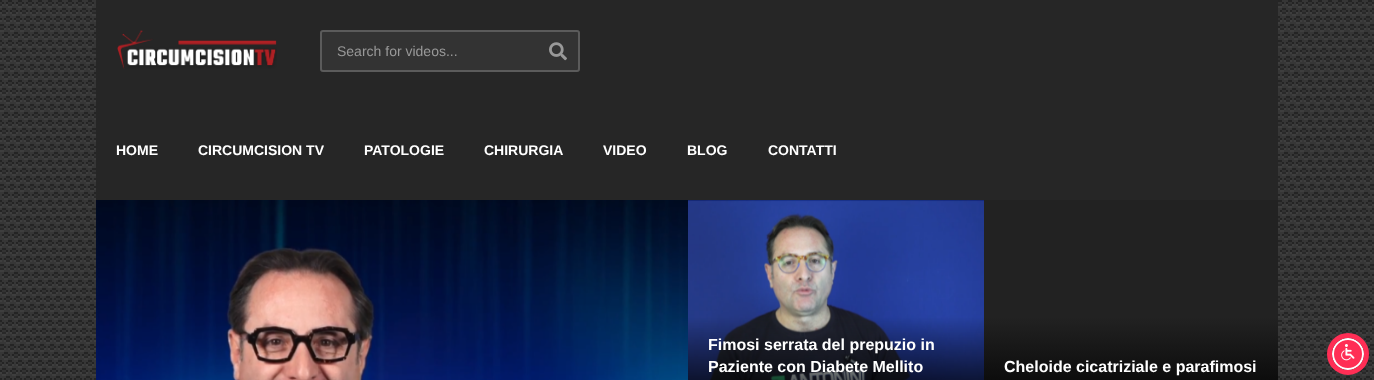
<svg xmlns="http://www.w3.org/2000/svg" width="1374" height="380" viewBox="0 0 1374 380">
  <style>
    .t1 { font: 14px Liberation Sans; fill: #999; }
    .t2 { font: bold 14px Liberation Sans; fill: #fff; }
    .t3 { font: bold 16px Liberation Sans; fill: #fff; }
  </style>
  <defs>
    <linearGradient id="g1" gradientUnits="userSpaceOnUse" x1="1132" y1="317" x2="1132" y2="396"><stop offset="0" stop-color="#222"/><stop offset="1" stop-color="#070707"/></linearGradient>
  </defs>
  <rect width="100%" height="100%" fill="#fff"/>
  <image x="0" y="0" width="1374" height="380" href="images/1.png"/>
  <rect x="96" y="0" width="1182" height="200" fill="#262626"/>
  <image x="117" y="30" width="160" height="39" href="images/2.png"/>
  <rect x="320" y="30" width="260" height="42" rx="3" fill="#333"/>
  <rect x="321" y="31" width="258" height="40" rx="2" fill="none" stroke="#ffffff33" stroke-width="2"/>
  <text x="337" y="56" class="t1">Search for videos...</text>
  <image x="549" y="42" width="18" height="19" href="images/3.png"/>
  <text x="116" y="155" class="t2">HOME</text>
  <text x="198" y="155" class="t2">CIRCUMCISION TV</text>
  <text x="364" y="155" class="t2">PATOLOGIE</text>
  <text x="484" y="155" class="t2">CHIRURGIA</text>
  <text x="603" y="155" class="t2">VIDEO</text>
  <text x="687" y="155" class="t2">BLOG</text>
  <text x="768" y="155" class="t2">CONTATTI</text>
  <image x="96" y="200" width="592" height="180" href="images/4.png"/>
  <image x="688" y="200" width="296" height="180" href="images/5.png"/>
  <text x="708" y="350" class="t3">Fimosi serrata del prepuzio in</text>
  <text x="708" y="372" class="t3">Paziente con Diabete Mellito</text>
  <rect x="984" y="200" width="294" height="117" fill="#222"/>
  <rect x="984" y="317" width="294" height="63" fill="url(#g1)"/>
  <text x="1004" y="372" class="t3">Cheloide cicatriziale e parafimosi</text>
  <rect x="1332" y="340" width="32" height="32" rx="16" fill="#5d649433" filter="blur(2px)"/>
  <circle cx="1348" cy="354" r="15" fill="#ff2e55" stroke="#fff" stroke-width="2"/>
  <circle cx="1348" cy="354" r="18.5" fill="none" stroke="#ff2e55" stroke-width="5"/>
  <image x="1341" y="344" width="14" height="17" href="images/6.png"/>
</svg>
